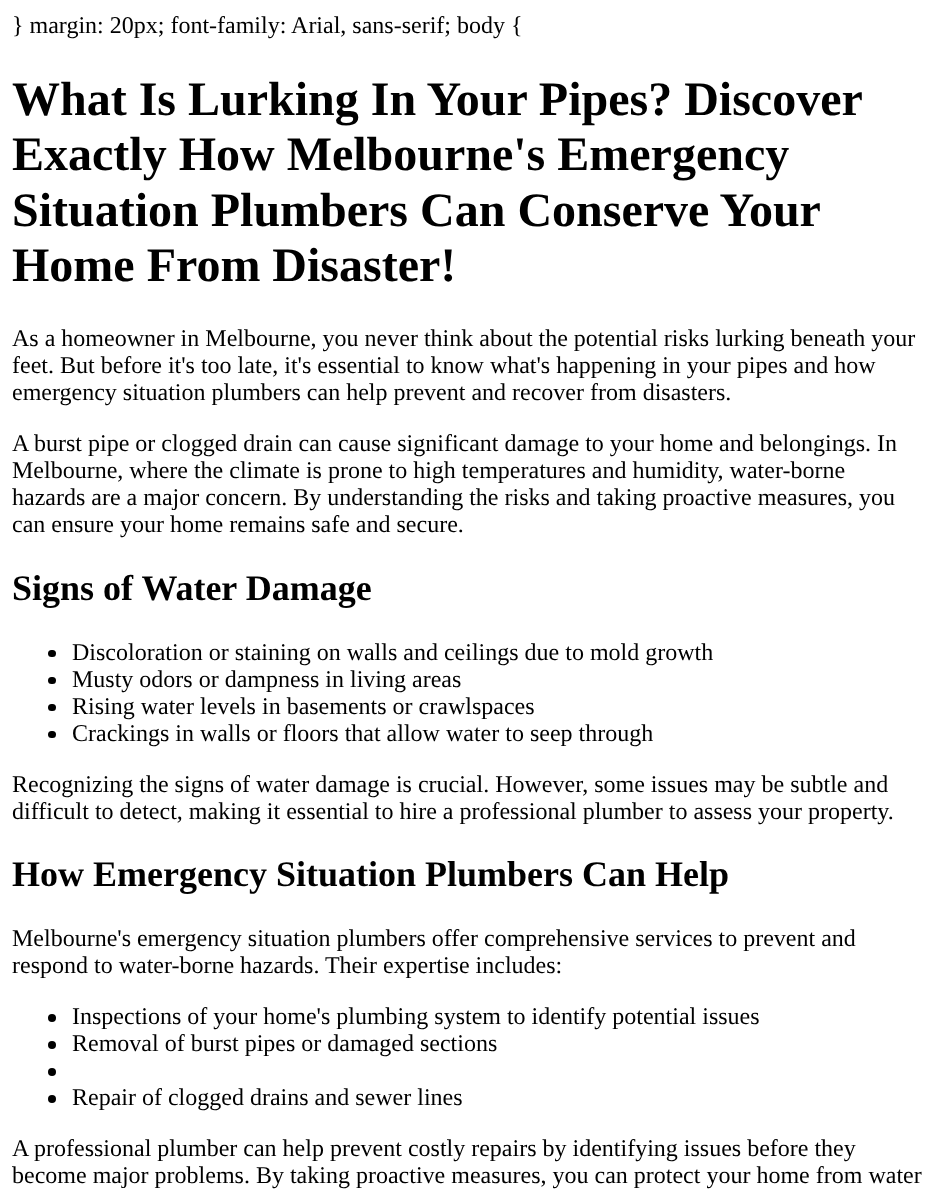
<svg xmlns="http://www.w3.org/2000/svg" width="934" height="1201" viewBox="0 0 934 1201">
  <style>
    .t1 { font: 24px Liberation Serif; fill: #000; }
    .t2 { font: bold 48px Liberation Serif; fill: #000; }
    .t3 { font: bold 36px Liberation Serif; fill: #000; }
  </style>
  <rect width="100%" height="100%" fill="#fff"/>
  <text x="12" y="33" class="t1">} margin: 20px; font-family: Arial, sans-serif; body {</text>
  <text x="12" y="115" class="t2">What Is Lurking In Your Pipes? Discover</text>
  <text x="12" y="170" class="t2">Exactly How Melbourne's Emergency</text>
  <text x="12" y="226" class="t2">Situation Plumbers Can Conserve Your</text>
  <text x="12" y="281" class="t2">Home From Disaster!</text>
  <text x="12" y="346" class="t1">As a homeowner in Melbourne, you never think about the potential risks lurking beneath your</text>
  <text x="12" y="373" class="t1">feet. But before it's too late, it's essential to know what's happening in your pipes and how</text>
  <text x="12" y="400" class="t1">emergency situation plumbers can help prevent and recover from disasters.</text>
  <text x="12" y="451" class="t1">A burst pipe or clogged drain can cause significant damage to your home and belongings. In</text>
  <text x="12" y="478" class="t1">Melbourne, where the climate is prone to high temperatures and humidity, water-borne</text>
  <text x="12" y="505" class="t1">hazards are a major concern. By understanding the risks and taking proactive measures, you</text>
  <text x="12" y="532" class="t1">can ensure your home remains safe and secure.</text>
  <text x="12" y="600" class="t3">Signs of Water Damage</text>
  <rect x="48" y="650" width="8" height="7" rx="3.5" fill="#000"/>
  <text x="72" y="660" class="t1">Discoloration or staining on walls and ceilings due to mold growth</text>
  <rect x="48" y="677" width="8" height="7" rx="3.5" fill="#000"/>
  <text x="72" y="687" class="t1">Musty odors or dampness in living areas</text>
  <rect x="48" y="704" width="8" height="7" rx="3.5" fill="#000"/>
  <text x="72" y="714" class="t1">Rising water levels in basements or crawlspaces</text>
  <rect x="48" y="731" width="8" height="7" rx="3.5" fill="#000"/>
  <text x="72" y="741" class="t1">Crackings in walls or floors that allow water to seep through</text>
  <text x="12" y="792" class="t1">Recognizing the signs of water damage is crucial. However, some issues may be subtle and</text>
  <text x="12" y="819" class="t1">difficult to detect, making it essential to hire a professional plumber to assess your property.</text>
  <text x="12" y="886" class="t3">How Emergency Situation Plumbers Can Help</text>
  <text x="12" y="946" class="t1">Melbourne's emergency situation plumbers offer comprehensive services to prevent and</text>
  <text x="12" y="973" class="t1">respond to water-borne hazards. Their expertise includes:</text>
  <circle cx="52" cy="1018" r="4" fill="#000"/>
  <text x="72" y="1024" class="t1">Inspections of your home's plumbing system to identify potential issues</text>
  <circle cx="52" cy="1045" r="4" fill="#000"/>
  <text x="72" y="1051" class="t1">Removal of burst pipes or damaged sections</text>
  <circle cx="52" cy="1072" r="4" fill="#000"/>
  <circle cx="52" cy="1099" r="4" fill="#000"/>
  <text x="72" y="1105" class="t1">Repair of clogged drains and sewer lines</text>
  <text x="12" y="1156" class="t1">A professional plumber can help prevent costly repairs by identifying issues before they</text>
  <text x="12" y="1183" class="t1">become major problems. By taking proactive measures, you can protect your home from water</text>
</svg>
